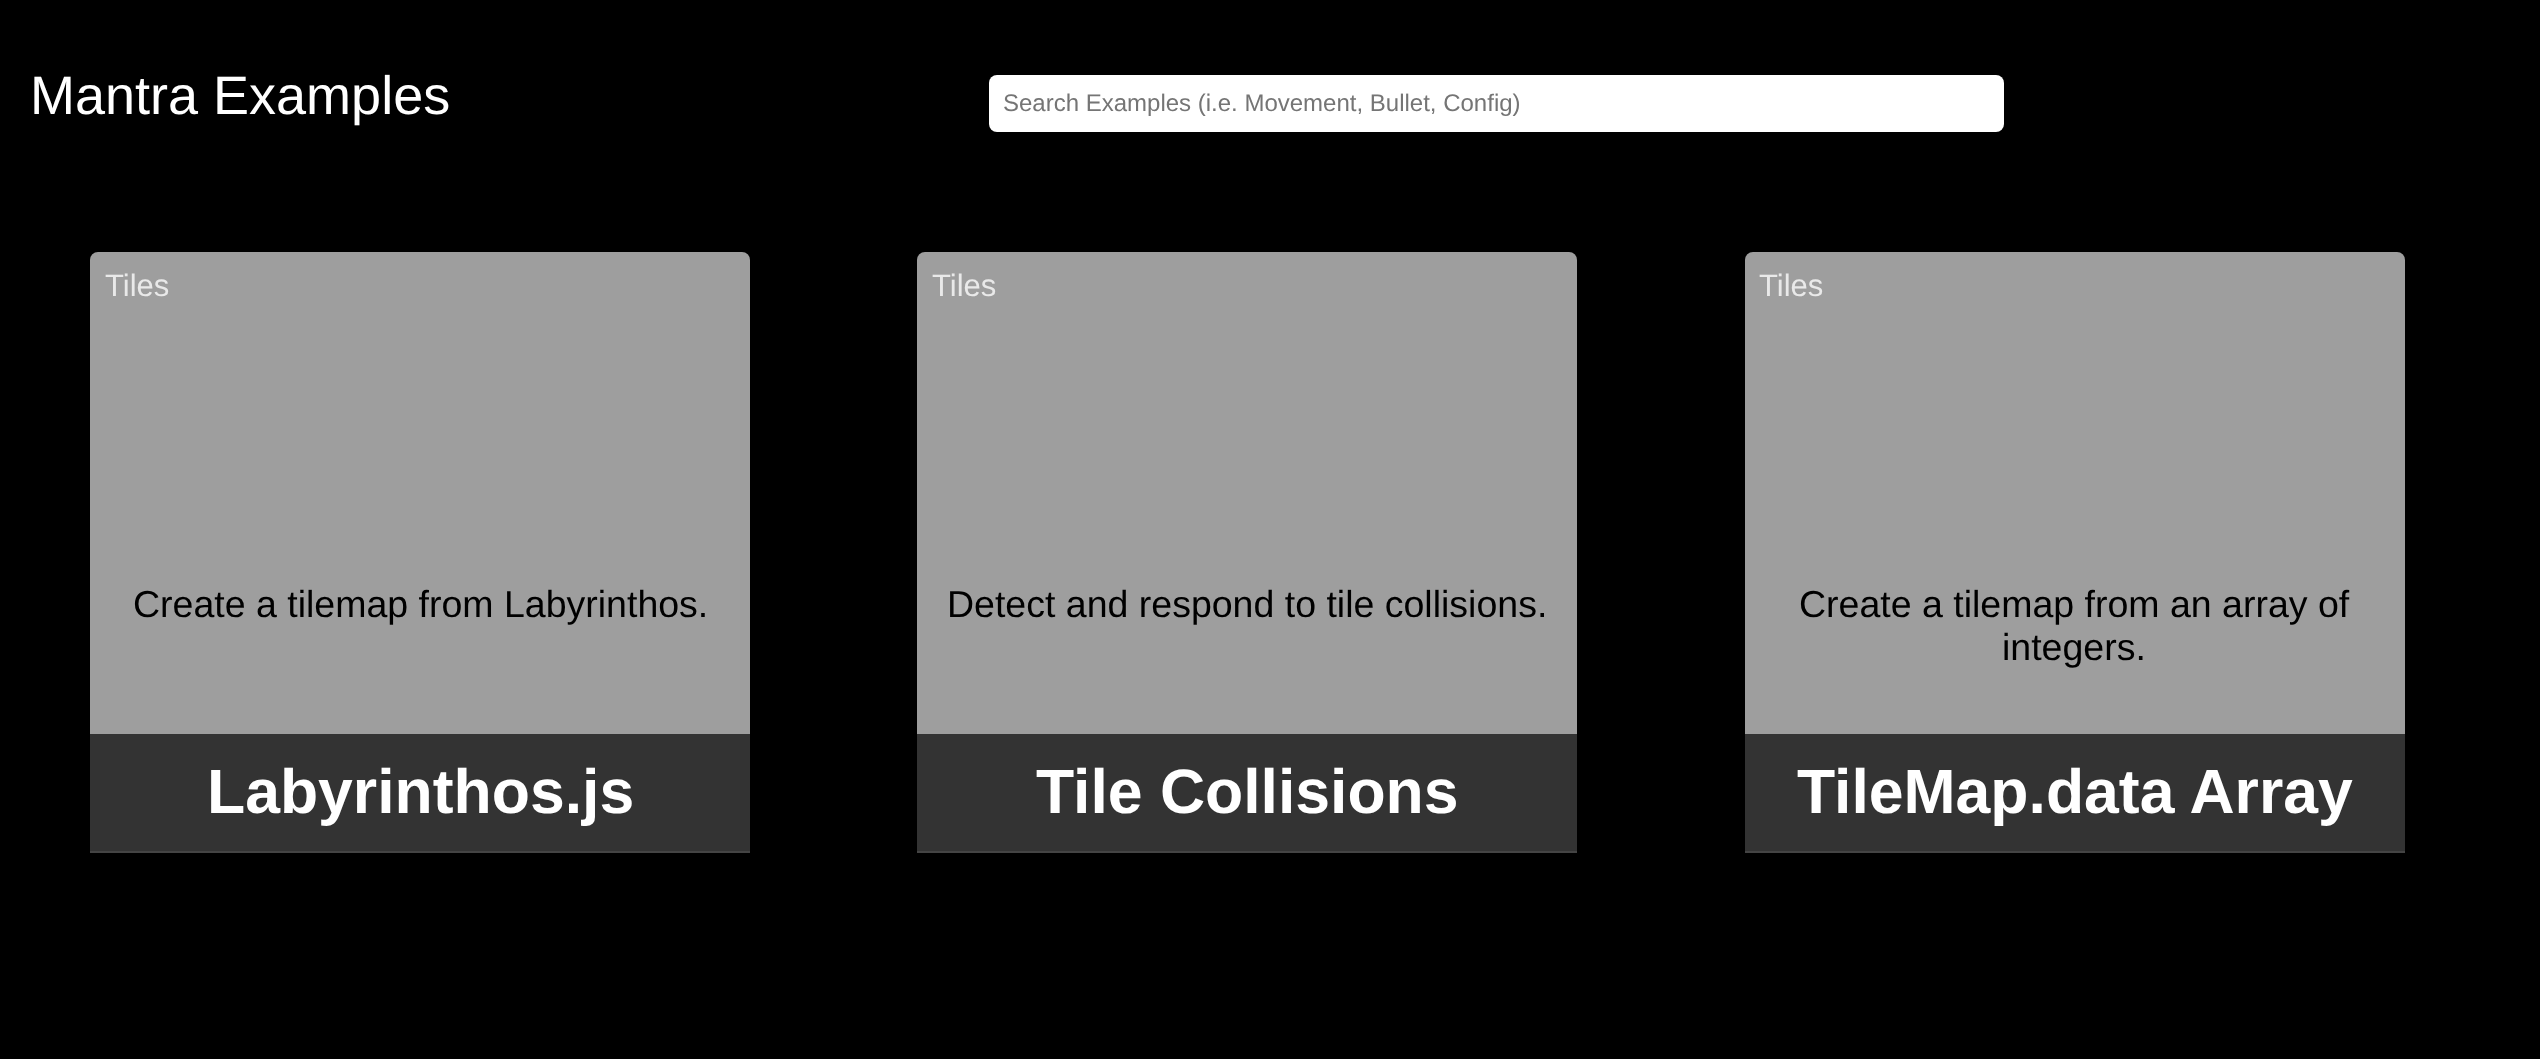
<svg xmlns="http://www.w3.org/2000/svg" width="2540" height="1059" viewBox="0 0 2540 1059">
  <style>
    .t1 { font: 54px Liberation Sans; fill: #fff; }
    .t2 { font: 24px Liberation Sans; fill: #757575; }
    .t3 { font: 31px Liberation Sans; fill: #e9e9e9; }
    .t4 { font: 37.5px Liberation Sans; fill: #000; }
    .t5 { font: bold 62.5px Liberation Sans; fill: #fff; }
  </style>
  <rect width="100%" height="100%" fill="#000"/>
  <text x="30" y="114" class="t1">Mantra Examples</text>
  <rect x="989" y="75" width="1015" height="57" rx="8" fill="#fff"/>
  <text x="1003" y="111" class="t2">Search Examples (i.e. Movement, Bullet, Config)</text>
  <rect x="90" y="252" width="660" height="600" rx="8" fill="#9e9e9e"/>
  <text x="105" y="296" class="t3">Tiles</text>
  <text x="133" y="617" class="t4">Create a tilemap from Labyrinthos.</text>
  <rect x="90" y="734" width="660" height="117" fill="#333"/>
  <rect x="90" y="851" width="660" height="2" fill="#444"/>
  <text x="207" y="813" class="t5">Labyrinthos.js</text>
  <rect x="917" y="252" width="660" height="600" rx="8" fill="#9e9e9e"/>
  <text x="932" y="296" class="t3">Tiles</text>
  <text x="947" y="617" class="t4">Detect and respond to tile collisions.</text>
  <rect x="917" y="734" width="660" height="117" fill="#333"/>
  <rect x="917" y="851" width="660" height="2" fill="#444"/>
  <text x="1036" y="813" class="t5">Tile Collisions</text>
  <rect x="1745" y="252" width="660" height="600" rx="8" fill="#9e9e9e"/>
  <text x="1759" y="296" class="t3">Tiles</text>
  <text x="1799" y="617" class="t4">Create a tilemap from an array of</text>
  <text x="2002" y="660" class="t4">integers.</text>
  <rect x="1745" y="734" width="660" height="117" fill="#333"/>
  <rect x="1745" y="851" width="660" height="2" fill="#444"/>
  <text x="1797" y="813" class="t5">TileMap.data Array</text>
</svg>
